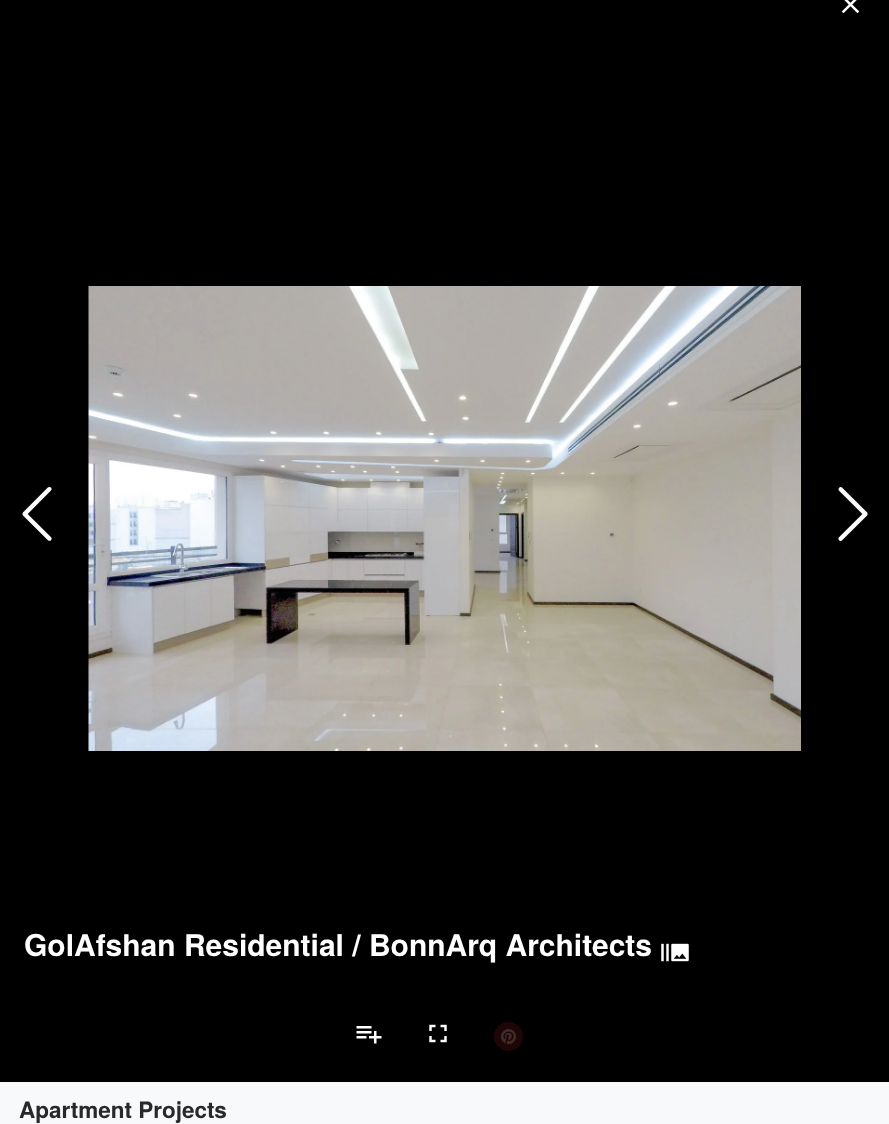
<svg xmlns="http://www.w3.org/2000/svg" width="889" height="1124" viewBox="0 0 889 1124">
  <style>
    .t1 { font: bold 30px TeX Gyre Heros; fill: #fff; }
    .t2 { font: bold 22.5px TeX Gyre Heros; fill: #292929; }
  </style>
  <rect width="100%" height="100%" fill="#f7f9fa"/>
  <rect x="0" y="0" width="889" height="1082" fill="#000"/>
  <image x="841" y="0" width="19" height="14" href="images/1.png"/>
  <image x="88" y="286" width="713" height="465" href="images/2.png"/>
  <image x="22" y="487" width="30" height="54" href="images/3.png"/>
  <image x="838" y="487" width="30" height="54" href="images/4.png"/>
  <text x="24" y="956" class="t1">GolAfshan Residential / BonnArq Architects</text>
  <image x="661" y="943" width="28" height="19" href="images/5.png"/>
  <image x="356" y="1026" width="26" height="18" href="images/6.png"/>
  <image x="429" y="1024" width="18" height="19" href="images/7.png"/>
  <image x="494" y="1022" width="29" height="29" href="images/8.png"/>
  <text x="19" y="1118" class="t2">Apartment Projects</text>
</svg>
